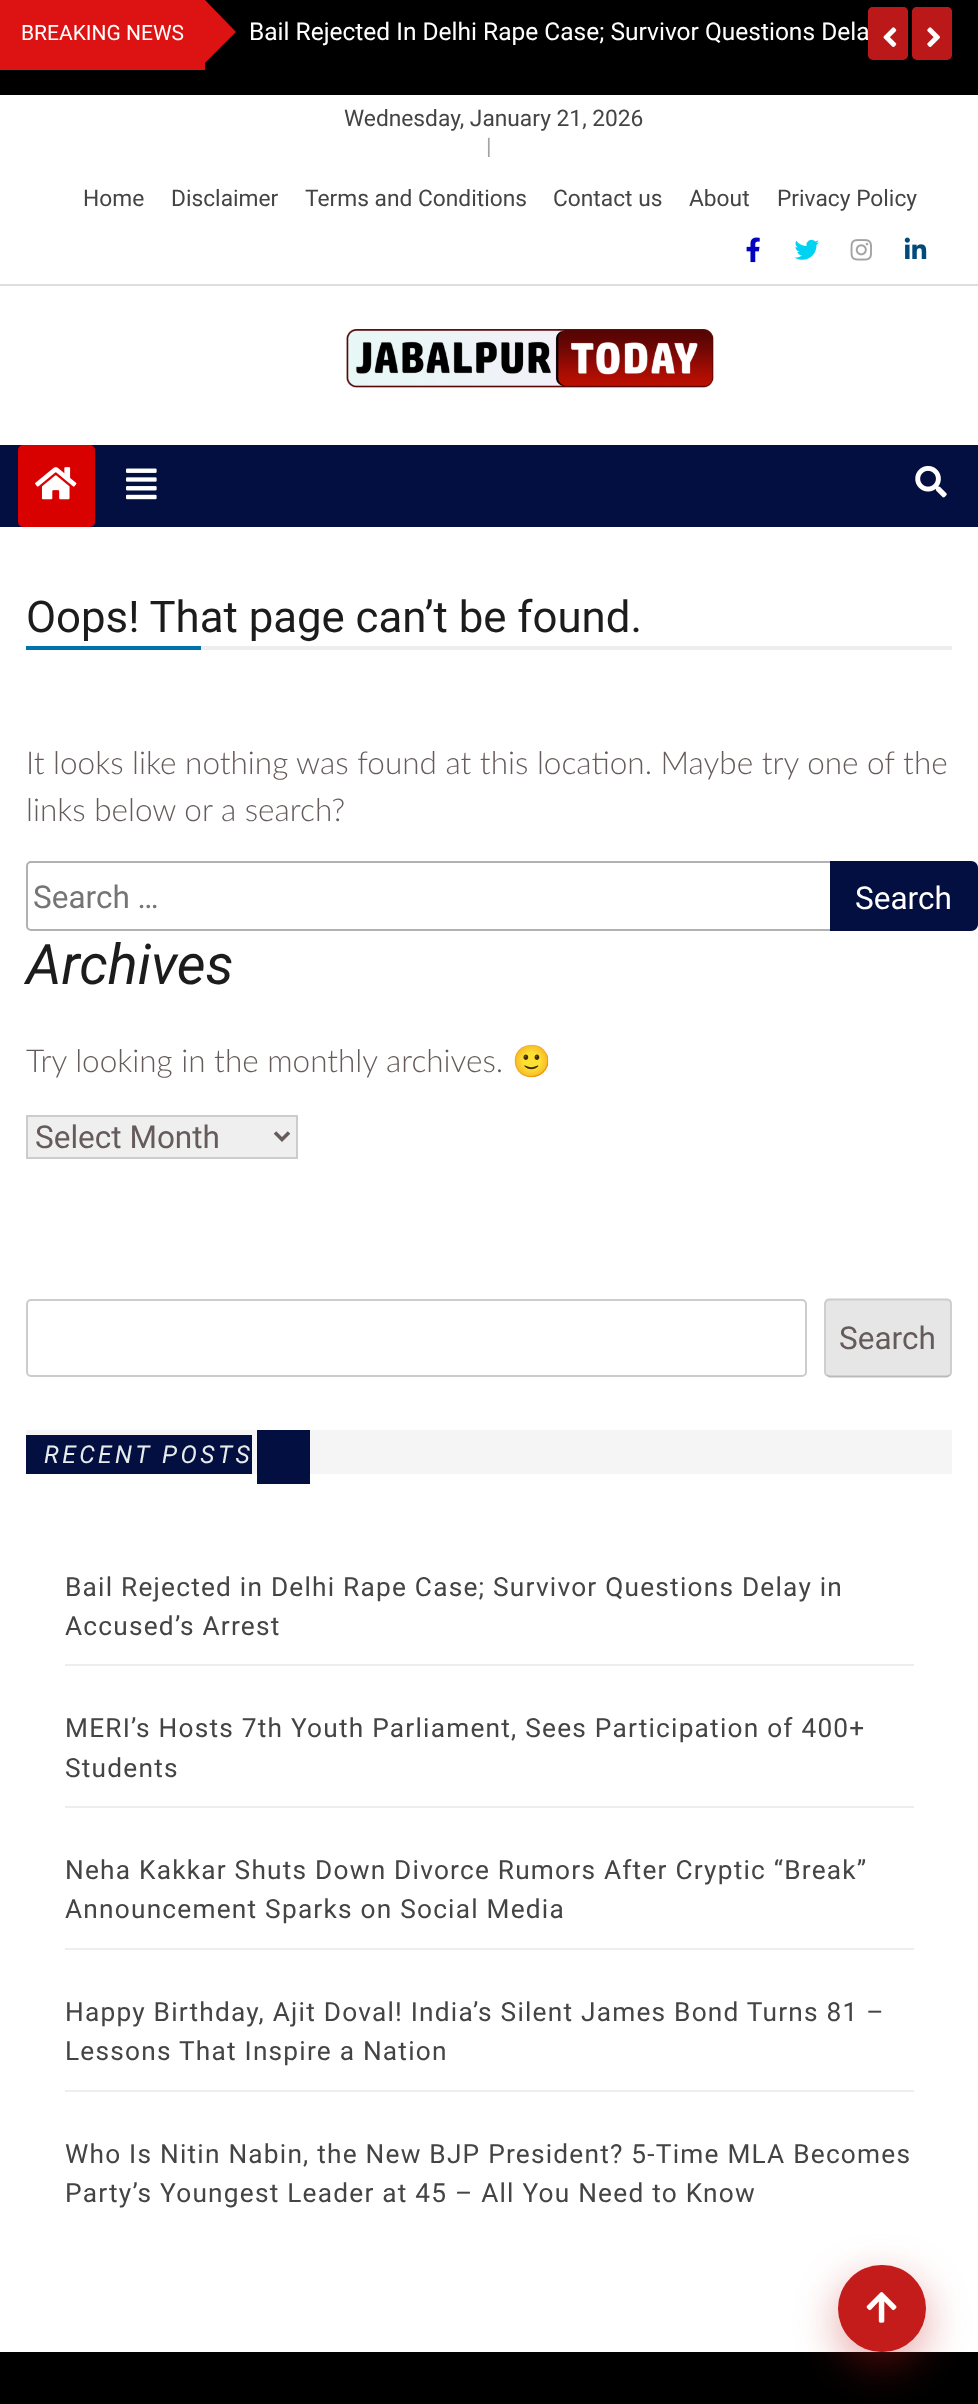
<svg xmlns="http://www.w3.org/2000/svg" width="978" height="2404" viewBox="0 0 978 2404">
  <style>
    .t1 { font: 21px Roboto; fill: #fff; }
    .t2 { font: 24.5px Roboto; fill: #fff; }
    .t3 { font: 22.75px Roboto; fill: #444; }
    .t4 { font: 22.75px Roboto; fill: #a3a3a3; }
    .t5 { font: 43.75px Roboto; fill: #1c1c1c; }
    .t6 { font: 300 31.5px Lato; fill: #665b5b; }
    .t7 { font: 31.5px Roboto; fill: #757575; }
    .t8 { font: 31.5px Roboto; fill: #fff; }
    .t9 { font: italic 56px Roboto; fill: #1c1c1c; }
    .t10 { font: 31.5px Noto Color Emoji; fill: #665b5b; }
    .t11 { font: 31.5px Roboto; fill: #665b5b; }
    .t12 { font: italic 24.5px Roboto; letter-spacing: 3.5px; fill: #e7eceb; }
    .t13 { font: 26.25px Roboto; letter-spacing: 1.22px; fill: #444; }
  </style>
  <rect width="100%" height="100%" fill="#fff"/>
  <rect x="0" y="0" width="978" height="95" fill="#000"/>
  <rect x="0" y="0" width="205" height="70" fill="#dd1313"/>
  <text x="21" y="40" class="t1">BREAKING NEWS</text>
  <path d="M205 63V0L236 32Z" fill="#dd1313"/>
  <text x="249" y="40" class="t2">Bail Rejected In Delhi Rape Case; Survivor Questions Dela</text>
  <rect x="868" y="7" width="40" height="53" rx="5" fill="#bb1919"/>
  <rect x="868" y="7" width="40" height="28" rx="5" fill="#bb1919"/>
  <image x="883" y="27" width="14" height="20" href="images/1.png"/>
  <rect x="912" y="7" width="40" height="53" rx="5" fill="#bb1919"/>
  <rect x="912" y="7" width="40" height="28" rx="5" fill="#bb1919"/>
  <image x="927" y="27" width="13" height="20" href="images/2.png"/>
  <rect x="0" y="284" width="978" height="2" fill="#dedede"/>
  <text x="344" y="126" class="t3">Wednesday, January 21, 2026</text>
  <text x="486" y="154" class="t4">|</text>
  <text x="83" y="206" class="t3">Home</text>
  <text x="171" y="206" class="t3">Disclaimer</text>
  <text x="305" y="206" class="t3">Terms and Conditions</text>
  <text x="553" y="206" class="t3">Contact us</text>
  <text x="689" y="206" class="t3">About</text>
  <text x="777" y="206" class="t3">Privacy Policy</text>
  <image x="746" y="237" width="14" height="26" href="images/3.png"/>
  <image x="794" y="239" width="25" height="21" href="images/4.png"/>
  <image x="850" y="239" width="22" height="22" href="images/5.png"/>
  <image x="904" y="237" width="23" height="22" href="images/6.png"/>
  <image x="346" y="329" width="368" height="59" href="images/7.png"/>
  <rect x="0" y="445" width="978" height="82" fill="#030f40"/>
  <rect x="18" y="445" width="77" height="82" rx="5" fill="#d90000"/>
  <image x="35" y="467" width="42" height="33" href="images/8.png"/>
  <image x="126" y="468" width="31" height="32" href="images/9.png"/>
  <image x="915" y="465" width="32" height="33" href="images/10.png"/>
  <rect x="201" y="646" width="751" height="4" fill="#eee"/>
  <text x="26" y="632" class="t5">Oops! That page can’t be found.</text>
  <rect x="26" y="646" width="175" height="4" fill="#0073aa"/>
  <text x="26" y="774" class="t6">It looks like nothing was found at this location. Maybe try one of the</text>
  <text x="26" y="821" class="t6">links below or a search?</text>
  <rect x="27" y="862" width="924" height="68" rx="4" fill="none" stroke="#b1b1b1" stroke-width="2"/>
  <text x="33" y="908" class="t7">Search …</text>
  <path d="M830 861H971C975 861 978 864 978 868V924C978 928 975 931 971 931H830Z" fill="#030f40"/>
  <text x="855" y="909" class="t8">Search</text>
  <text x="26" y="984" class="t9">Archives</text>
  <text x="26" y="1072" class="t6">Try looking in the monthly archives.</text>
  <text x="512" y="1072" class="t10">🙂</text>
  <rect x="27" y="1116" width="270" height="42" fill="#efefef" stroke="#ccc" stroke-width="2"/>
  <path d="M275 1132.5L282 1139.5L289 1132.5" fill="none" stroke="#665b5b" stroke-width="3.5"/>
  <text x="35" y="1148" class="t11">Select Month</text>
  <rect x="27" y="1300" width="779" height="76" rx="4" fill="none" stroke="#ccc" stroke-width="2"/>
  <rect x="824" y="1299" width="128" height="78" rx="5" fill="#e6e6e6"/>
  <path d="M950 1375L947 1376.5H849H829.5L826.5 1375" fill="none" stroke="#bbb" stroke-width="1.8"/>
  <path d="M826.5 1375C825.5 1374.5 825 1373 825 1372V1304C825 1302.5 825.5 1301.5 826.5 1300.5C827 1300 828.5 1299.5 829.5 1299.5H947C948 1299.5 949 1300 950 1300.5C950.5 1301.5 951 1302.5 951 1304V1372C951 1373 950.5 1374.5 950 1375" fill="none" stroke="#ccc" stroke-width="1.8"/>
  <text x="839" y="1349" class="t11">Search</text>
  <rect x="26" y="1430" width="926" height="44" fill="#f5f5f5"/>
  <rect x="26" y="1435" width="226" height="39" fill="#030f40"/>
  <text x="44" y="1463" class="t12">RECENT POSTS</text>
  <rect x="257" y="1430" width="53" height="54" fill="#030f40"/>
  <rect x="65" y="1664" width="849" height="2" fill="#eee"/>
  <text x="65" y="1596" class="t13">Bail Rejected in Delhi Rape Case; Survivor Questions Delay in</text>
  <text x="65" y="1635" class="t13">Accused’s Arrest</text>
  <rect x="65" y="1806" width="849" height="2" fill="#eee"/>
  <text x="65" y="1737" class="t13">MERI’s Hosts 7th Youth Parliament, Sees Participation of 400+</text>
  <text x="65" y="1777" class="t13">Students</text>
  <rect x="65" y="1948" width="849" height="2" fill="#eee"/>
  <text x="65" y="1879" class="t13">Neha Kakkar Shuts Down Divorce Rumors After Cryptic “Break”</text>
  <text x="65" y="1918" class="t13">Announcement Sparks on Social Media</text>
  <rect x="65" y="2090" width="849" height="2" fill="#eee"/>
  <text x="65" y="2021" class="t13">Happy Birthday, Ajit Doval! India’s Silent James Bond Turns 81 –</text>
  <text x="65" y="2060" class="t13">Lessons That Inspire a Nation</text>
  <text x="65" y="2163" class="t13">Who Is Nitin Nabin, the New BJP President? 5-Time MLA Becomes</text>
  <text x="65" y="2202" class="t13">Party’s Youngest Leader at 45 – All You Need to Know</text>
  <rect x="0" y="2352" width="978" height="52" fill="#000"/>
  <rect x="838" y="2279" width="88" height="87" rx="43.5" fill="#c41b1b66" filter="blur(22px)"/>
  <rect x="838" y="2265" width="88" height="87" rx="43.5" fill="#c41b1b"/>
  <image x="866" y="2292" width="31" height="31" href="images/11.png"/>
</svg>
